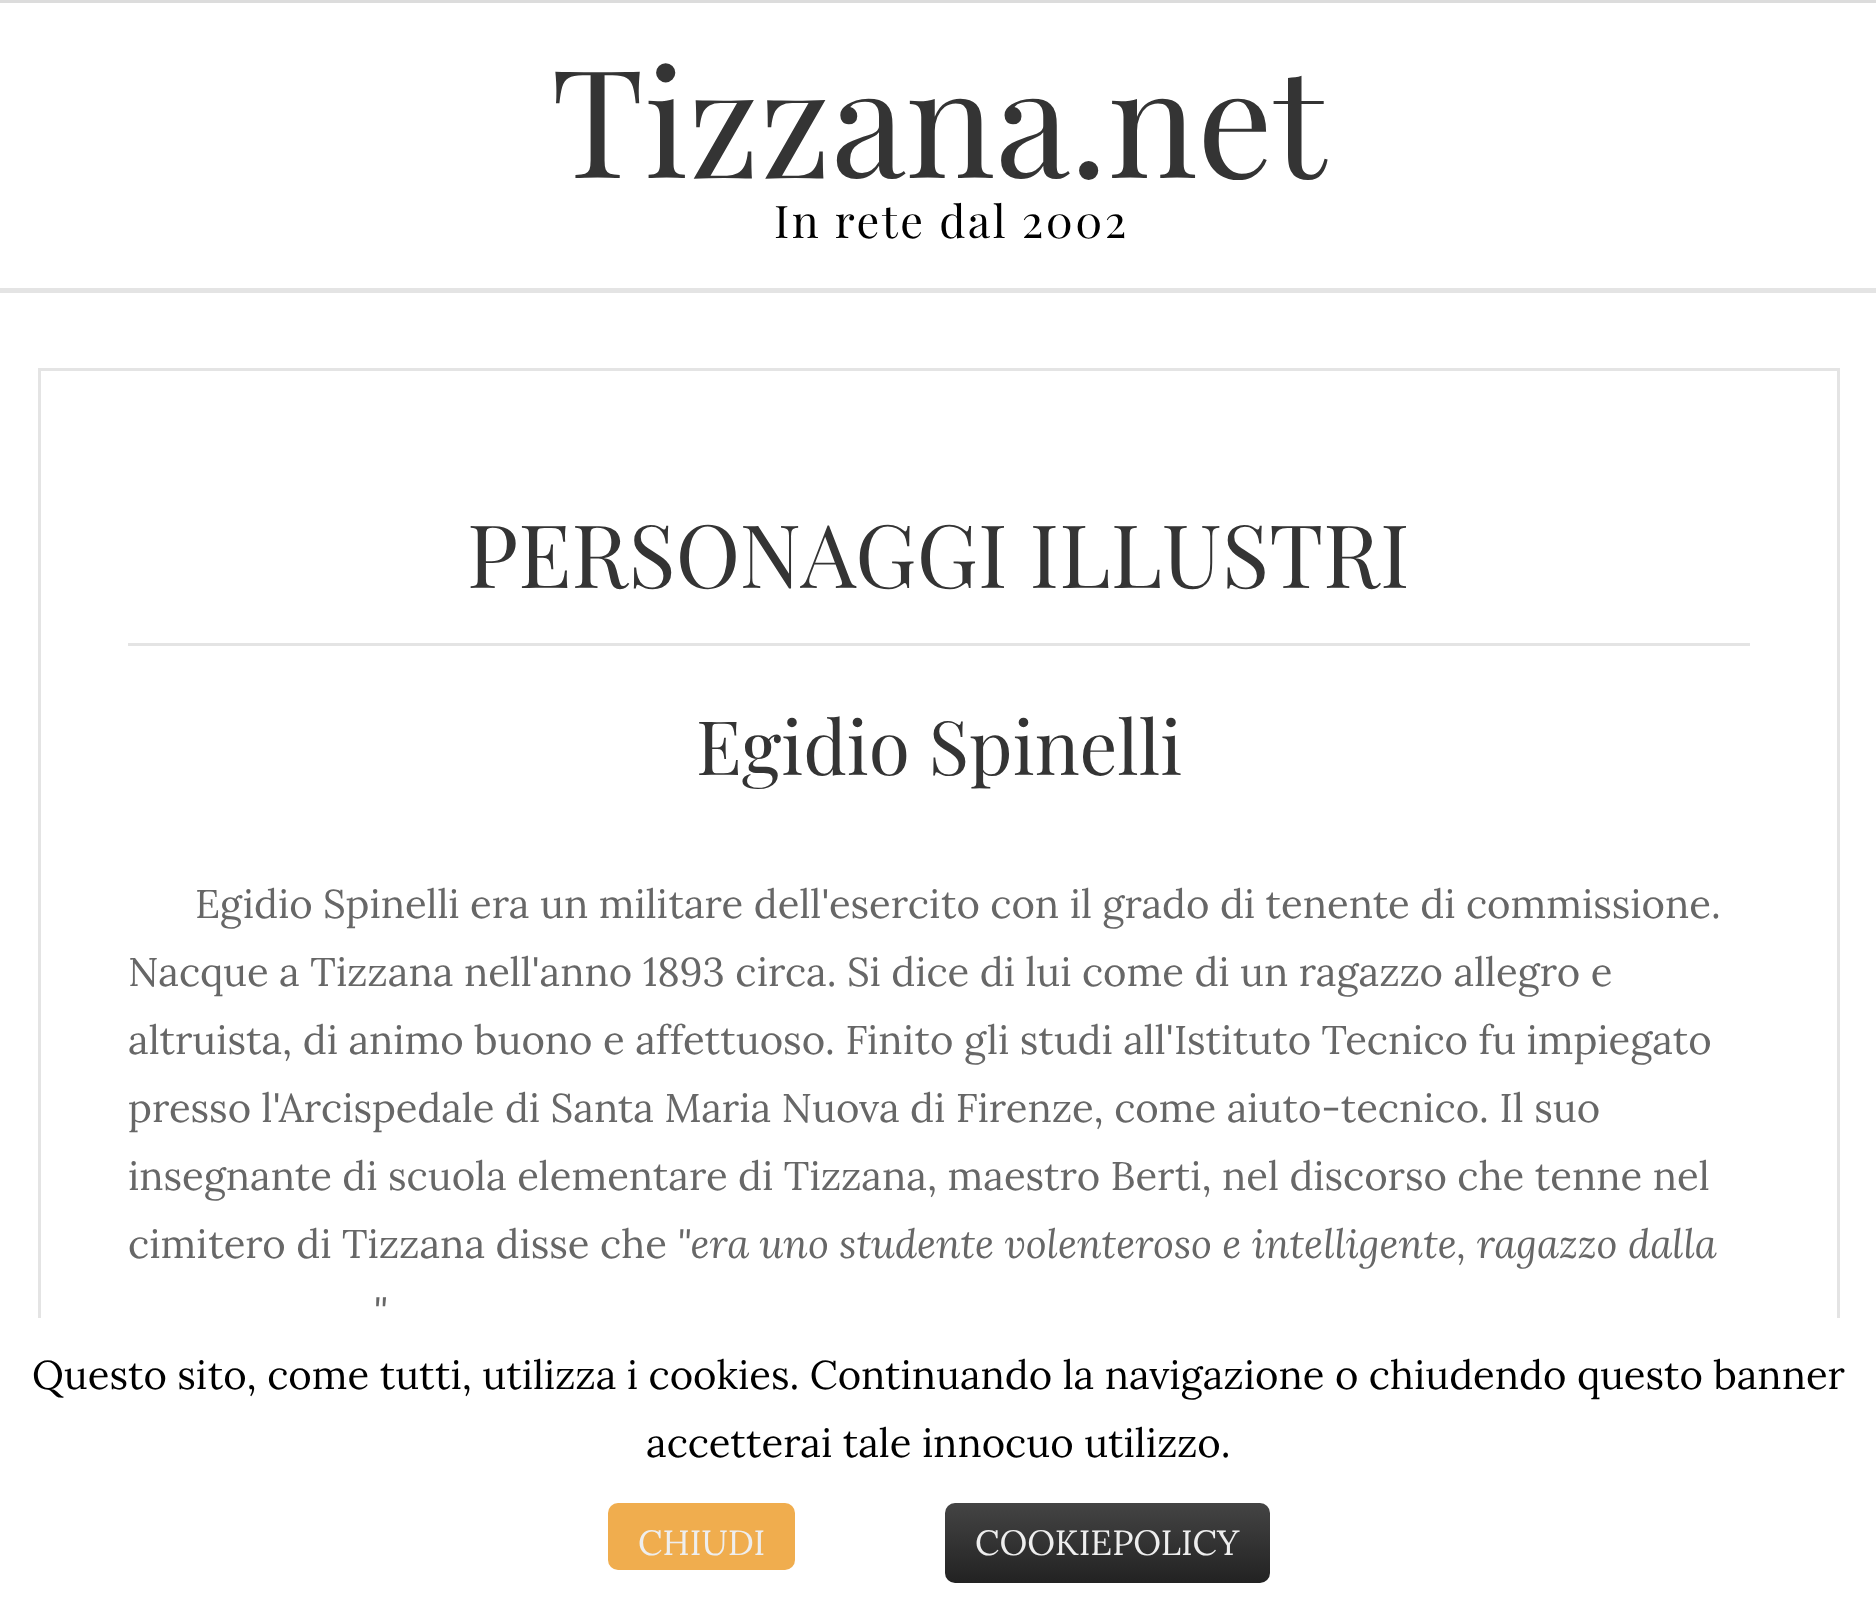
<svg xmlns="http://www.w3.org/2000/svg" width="1876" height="1607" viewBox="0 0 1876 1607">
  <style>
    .t1 { font: 150px Playfair Display; fill: #343434; }
    .t2 { font: 45px Playfair Display; letter-spacing: 2.5px; fill: #000; }
    .t3 { font: 87.5px Playfair Display; fill: #343434; }
    .t4 { font: 75px Playfair Display; fill: #343434; }
    .t5 { font: 40px Lora; fill: #676767; }
    .t6 { font: italic 40px Lora; fill: #676767; }
    .t7 { font: 40px Lora; fill: #000; }
    .t8 { font: 35px Lora; fill: #eee; }
  </style>
  <defs>
    <linearGradient id="g1" gradientUnits="userSpaceOnUse" x1="1108" y1="1503" x2="1108" y2="1583"><stop offset="0" stop-color="#444"/><stop offset="1" stop-color="#222"/></linearGradient>
  </defs>
  <rect width="100%" height="100%" fill="#fff"/>
  <rect x="0" y="0" width="1876" height="3" fill="#dcdcdc"/>
  <text x="551" y="178" class="t1">Tizzana.net</text>
  <text x="774" y="238" class="t2">In rete dal 2002</text>
  <rect x="0" y="288" width="1876" height="5" fill="#e4e4e4"/>
  <rect x="39.5" y="369.5" width="1799" height="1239" fill="none" stroke="#e4e4e4" stroke-width="3"/>
  <rect x="128" y="643" width="1622" height="3" fill="#e4e4e4"/>
  <text x="467" y="588" class="t3">PERSONAGGI ILLUSTRI</text>
  <text x="696" y="775" class="t4">Egidio Spinelli</text>
  <text x="195" y="918" class="t5">Egidio Spinelli era un militare dell'esercito con il grado di tenente di commissione.</text>
  <text x="128" y="986" class="t5">Nacque a Tizzana nell'anno 1893 circa. Si dice di lui come di un ragazzo allegro e</text>
  <text x="128" y="1054" class="t5">altruista, di animo buono e affettuoso. Finito gli studi all'Istituto Tecnico fu impiegato</text>
  <text x="128" y="1122" class="t5">presso l'Arcispedale di Santa Maria Nuova di Firenze, come aiuto-tecnico. Il suo</text>
  <text x="128" y="1190" class="t5">insegnante di scuola elementare di Tizzana, maestro Berti, nel discorso che tenne nel</text>
  <text x="128" y="1258" class="t5">cimitero di Tizzana disse che</text>
  <text x="677" y="1258" class="t6">"era uno studente volenteroso e intelligente, ragazzo dalla</text>
  <text x="373" y="1326" class="t6">"</text>
  <rect x="0" y="1318" width="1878" height="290" rx="13" fill="#fff"/>
  <text x="32" y="1389" class="t7">Questo sito, come tutti, utilizza i cookies. Continuando la navigazione o chiudendo questo banner</text>
  <text x="646" y="1457" class="t7">accetterai tale innocuo utilizzo.</text>
  <rect x="608" y="1503" width="187" height="67" rx="10" fill="#f0ad4e"/>
  <text x="638" y="1555" class="t8">CHIUDI</text>
  <rect x="945" y="1503" width="325" height="80" rx="10" fill="url(#g1)"/>
  <text x="975" y="1555" class="t8">COOKIEPOLICY</text>
</svg>
